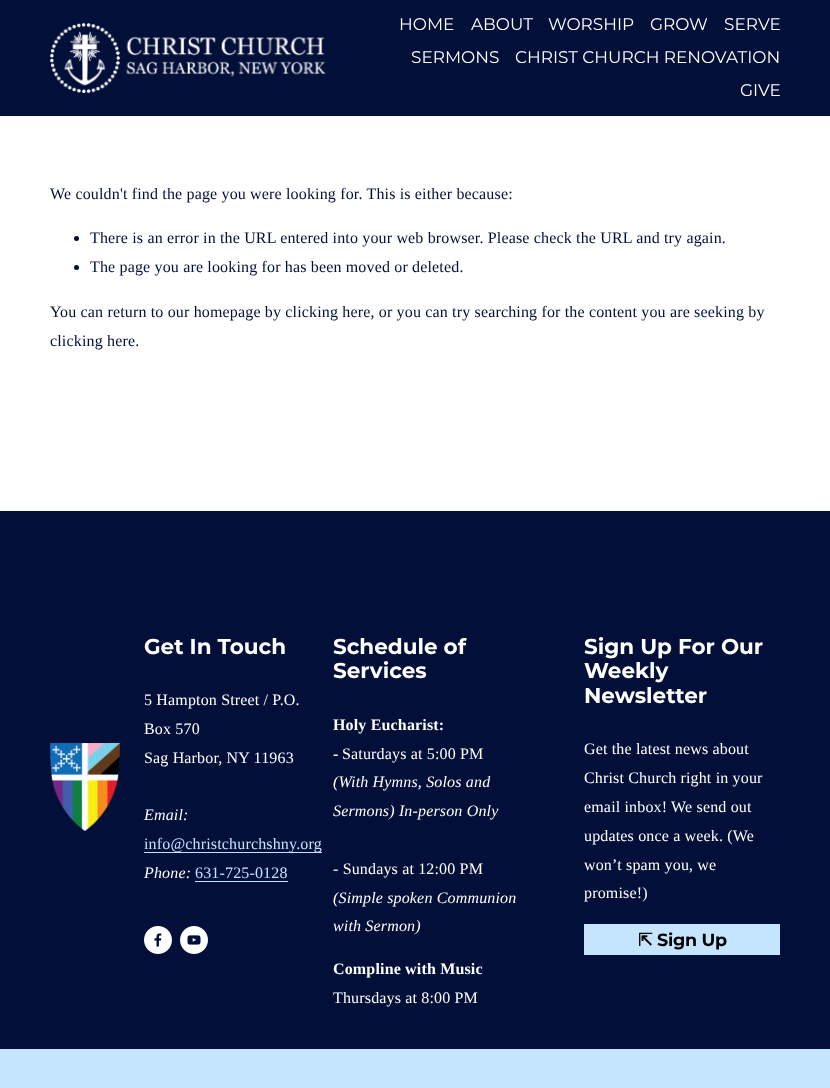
<svg xmlns="http://www.w3.org/2000/svg" width="830" height="1088" viewBox="0 0 830 1088">
  <style>
    .t1 { font: 16.9px Montserrat; fill: #fff; }
    .t2 { font: 16px Liberation Serif; letter-spacing: 0.16px; fill: #020f38; }
    .t3 { font: bold 21.5px Montserrat; fill: #fff; }
    .t4 { font: 16px Liberation Serif; letter-spacing: 0.16px; fill: #fff; }
    .t5 { font: italic 16px Liberation Serif; letter-spacing: 0.16px; fill: #fff; }
    .t6 { font: 16px Liberation Serif; letter-spacing: 0.16px; fill: #c5e5ff; }
    .t7 { font: bold 16px Liberation Serif; letter-spacing: 0.16px; fill: #fff; }
    .t8 { font: bold 17.5px DejaVu Sans; letter-spacing: -0.25px; fill: #000; }
    .t9 { font: bold 17.5px Montserrat; letter-spacing: -0.25px; fill: #000; }
  </style>
  <rect width="100%" height="100%" fill="#fff"/>
  <rect x="0" y="0" width="830" height="116" fill="#020f38"/>
  <image x="50" y="23" width="276" height="70" href="images/1.png"/>
  <text x="399" y="30" class="t1">HOME</text>
  <text x="471" y="30" class="t1">ABOUT</text>
  <text x="548" y="30" class="t1">WORSHIP</text>
  <text x="650" y="30" class="t1">GROW</text>
  <text x="724" y="30" class="t1">SERVE</text>
  <text x="411" y="63" class="t1">SERMONS</text>
  <text x="515" y="63" class="t1">CHRIST CHURCH RENOVATION</text>
  <text x="740" y="96" class="t1">GIVE</text>
  <text x="50" y="199" class="t2">We couldn't find the page you were looking for. This is either because:</text>
  <circle cx="76.5" cy="238.5" r="2.5" fill="#020f38"/>
  <text x="90" y="243" class="t2">There is an error in the URL entered into your web browser. Please check the URL and try again.</text>
  <circle cx="76.5" cy="267.5" r="2.5" fill="#020f38"/>
  <text x="90" y="272" class="t2">The page you are looking for has been moved or deleted.</text>
  <text x="50" y="317" class="t2">You can return to our homepage by clicking here, or you can try searching for the content you are seeking by</text>
  <text x="50" y="346" class="t2">clicking here.</text>
  <rect x="0" y="511" width="830" height="538" fill="#020f38"/>
  <image x="50" y="743" width="70" height="88" href="images/2.png"/>
  <text x="144" y="654" class="t3">Get In Touch</text>
  <text x="144" y="705" class="t4">5 Hampton Street / P.O.</text>
  <text x="144" y="734" class="t4">Box 570</text>
  <text x="144" y="763" class="t4">Sag Harbor, NY 11963</text>
  <text x="144" y="820" class="t5">Email:</text>
  <rect x="144" y="852" width="178" height="1" fill="#c5e5ff"/>
  <text x="144" y="849" class="t6">info@christchurchshny.org</text>
  <text x="144" y="878" class="t5">Phone:</text>
  <text x="195" y="878" class="t6">631-725-0128</text>
  <rect x="195" y="881" width="93" height="1" fill="#c5e5ff"/>
  <text x="333" y="654" class="t3">Schedule of</text>
  <text x="333" y="678" class="t3">Services</text>
  <text x="333" y="730" class="t7">Holy Eucharist:</text>
  <text x="333" y="759" class="t7">-</text>
  <text x="342" y="759" class="t4">Saturdays at 5:00 PM</text>
  <text x="333" y="787" class="t5">(With Hymns, Solos and</text>
  <text x="333" y="816" class="t5">Sermons) In-person Only</text>
  <text x="333" y="874" class="t4">- Sundays at 12:00 PM</text>
  <text x="333" y="903" class="t5">(Simple spoken Communion</text>
  <text x="333" y="931" class="t5">with Sermon)</text>
  <text x="333" y="974" class="t7">Compline with Music</text>
  <text x="333" y="1003" class="t4">Thursdays at 8:00 PM</text>
  <text x="584" y="654" class="t3">Sign Up For Our</text>
  <text x="584" y="678" class="t3">Weekly</text>
  <text x="584" y="703" class="t3">Newsletter</text>
  <text x="584" y="754" class="t4">Get the latest news about</text>
  <text x="584" y="783" class="t4">Christ Church right in your</text>
  <text x="584" y="812" class="t4">email inbox! We send out</text>
  <text x="584" y="841" class="t4">updates once a week. (We</text>
  <text x="584" y="870" class="t4">won’t spam you, we</text>
  <text x="584" y="898" class="t4">promise!)</text>
  <image x="144" y="926" width="28" height="28" href="images/3.png"/>
  <image x="180" y="926" width="28" height="28" href="images/4.png"/>
  <rect x="584" y="924" width="196" height="31" fill="#c5e5ff"/>
  <text x="638" y="946" class="t8">⇱</text>
  <text x="657" y="946" class="t9">Sign Up</text>
  <rect x="0" y="1049" width="830" height="39" fill="#c5e5ff"/>
</svg>
